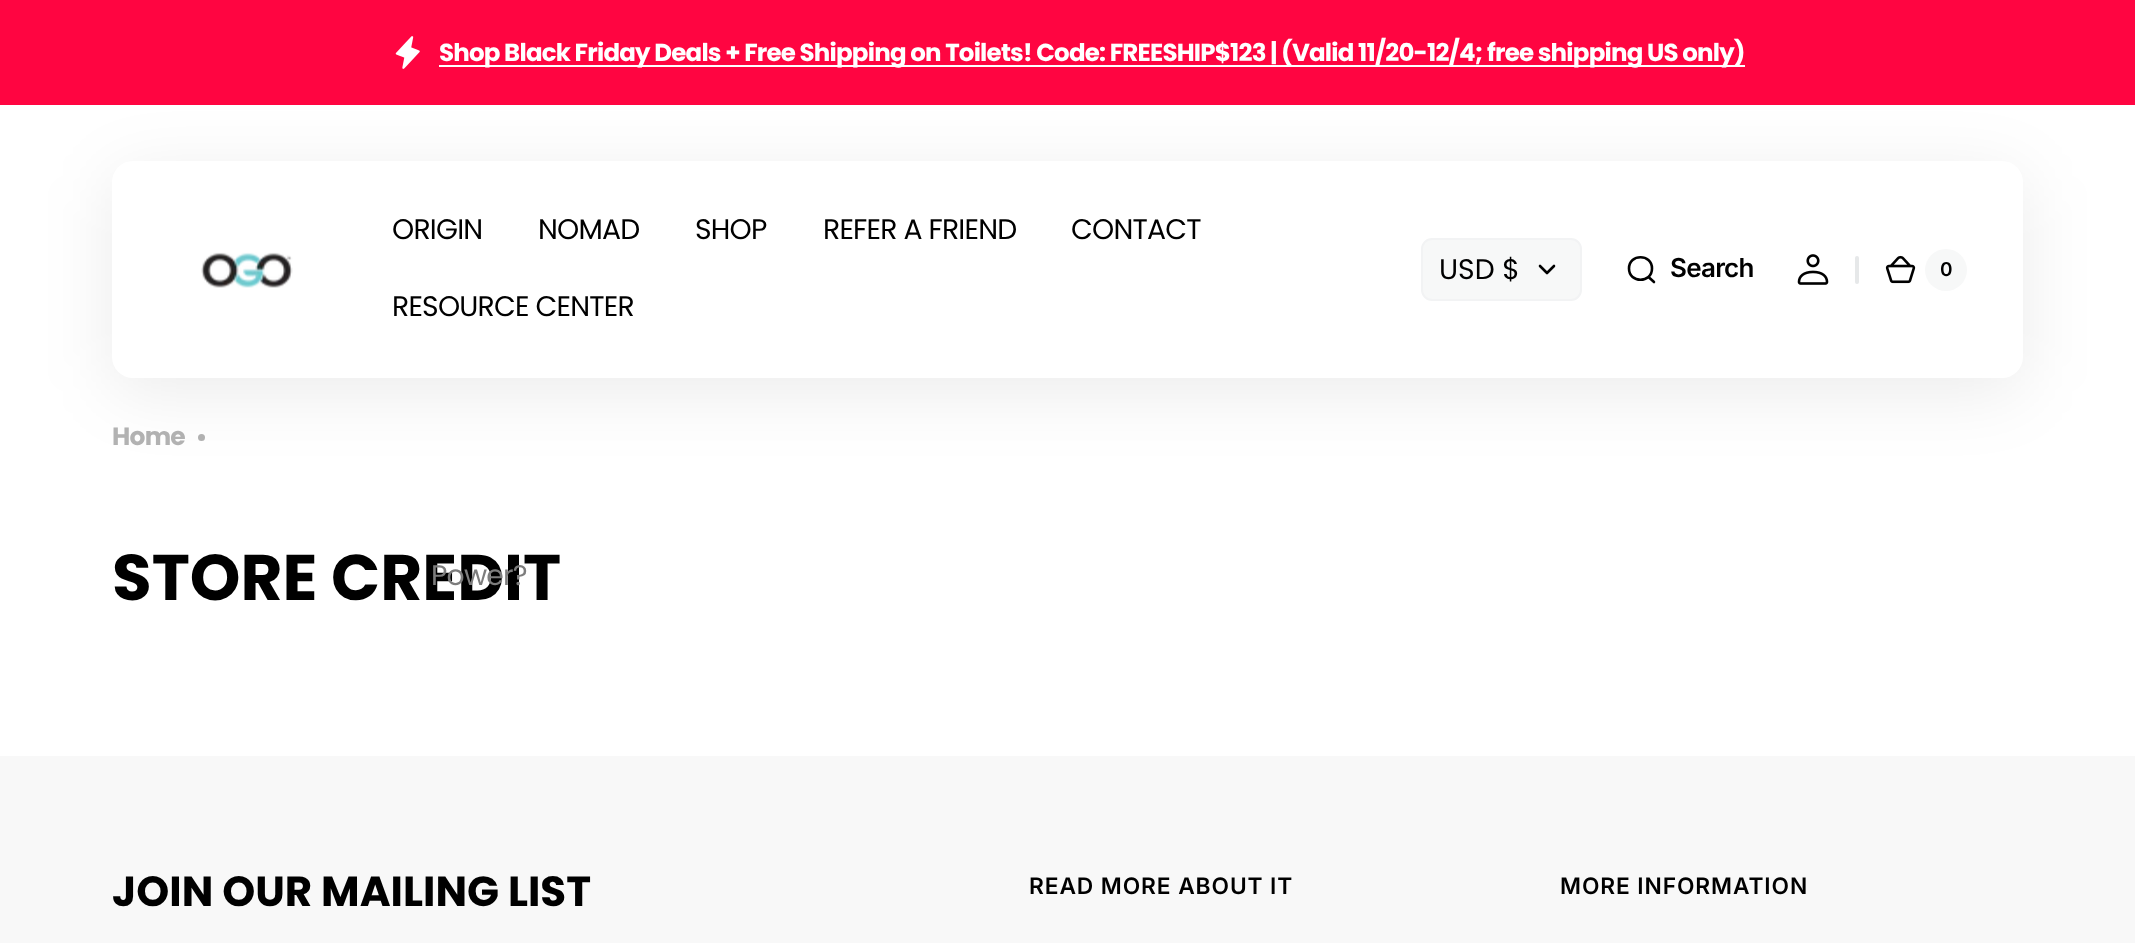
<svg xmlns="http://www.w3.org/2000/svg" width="2135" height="943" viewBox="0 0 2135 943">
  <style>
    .t1 { font: bold 24.5px Poppins; letter-spacing: -0.78px; fill: #fff; }
    .t2 { font: bold 25px Poppins; letter-spacing: -0.78px; fill: #b3b3b3; }
    .t3 { font: 28.25px Poppins; letter-spacing: -0.78px; fill: #000; }
    .t4 { font: bold 64.5px Poppins; fill: #000; }
    .t5 { font: 28.25px Poppins; letter-spacing: -0.78px; fill: #7d7d7d; }
    .t6 { font: 28.25px Poppins; fill: #000; }
    .t7 { font: 600 26px Inter; letter-spacing: -0.78px; fill: #000; }
    .t8 { font: 600 19px Inter; letter-spacing: -0.78px; fill: #000; }
    .t9 { font: bold 42px Poppins; fill: #000; }
    .t10 { font: 600 22.75px Inter; letter-spacing: 0.9px; fill: #000; }
  </style>
  <rect width="100%" height="100%" fill="#fff"/>
  <rect x="0" y="0" width="2135" height="105" fill="#ff0541"/>
  <image x="395" y="36" width="25" height="33" href="images/1.png"/>
  <rect x="439" y="65" width="1306" height="2" fill="#fff"/>
  <text x="439" y="61" class="t1">Shop Black Friday Deals + Free Shipping on Toilets! Code: FREESHIP$123 | (Valid 11/20-12/4; free shipping US only)</text>
  <text x="112" y="445" class="t2">Home</text>
  <circle cx="201.5" cy="437.5" r="3.5" fill="#b3b3b3"/>
  <rect x="112" y="175" width="1911" height="217" rx="21" fill="#00000014" filter="blur(35px)"/>
  <rect x="112" y="161" width="1911" height="217" rx="21" fill="#fff"/>
  <image x="201" y="252" width="92" height="36" href="images/2.png"/>
  <text x="392" y="239" class="t3">ORIGIN</text>
  <text x="112" y="600" class="t4">STORE CREDIT</text>
  <text x="431" y="585" class="t5">Power?</text>
  <text x="538" y="239" class="t3">NOMAD</text>
  <text x="695" y="239" class="t3">SHOP</text>
  <text x="823" y="239" class="t3">REFER A FRIEND</text>
  <text x="1071" y="239" class="t3">CONTACT</text>
  <text x="392" y="316" class="t3">RESOURCE CENTER</text>
  <rect x="1422" y="239" width="159" height="61" rx="10" fill="#f7f8f8" stroke="#f2f3f4" stroke-width="2"/>
  <text x="1439" y="279" class="t6">USD $</text>
  <path d="M1554 266L1547 273L1540 266" fill="none" stroke="#000" stroke-width="2.6" stroke-linecap="round" stroke-linejoin="round"/>
  <path d="M1648.5 277L1654 282M1652 268.5C1652 283.5 1629 283.5 1629 268.5C1629 253.5 1652 253.5 1652 268.5Z" fill="none" stroke="#000" stroke-width="2.6" stroke-linecap="round"/>
  <text x="1670" y="277" class="t7">Search</text>
  <image x="1797" y="254" width="32" height="31" href="images/3.png"/>
  <rect x="1855" y="256" width="4" height="28" rx="2" fill="#e6e8e9"/>
  <image x="1885" y="255" width="31" height="29" href="images/4.png"/>
  <circle cx="1946" cy="270" r="21" fill="#f7f8f8"/>
  <text x="1940" y="276" class="t8">0</text>
  <rect x="0" y="756" width="2135" height="187" fill="#f8f8f8"/>
  <text x="112" y="906" class="t9">JOIN OUR MAILING LIST</text>
  <text x="1029" y="894" class="t10">READ MORE ABOUT IT</text>
  <text x="1560" y="894" class="t10">MORE INFORMATION</text>
</svg>
